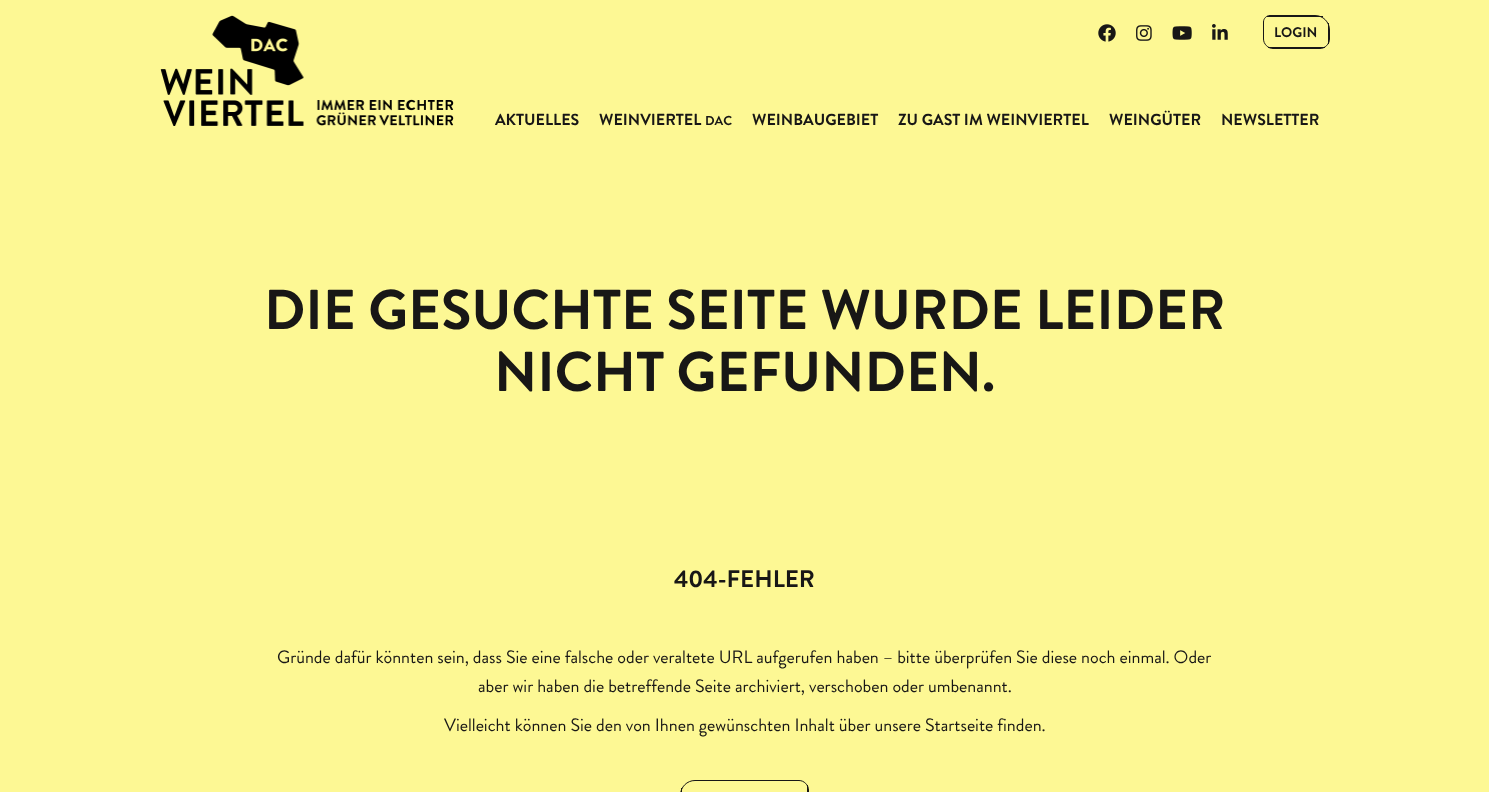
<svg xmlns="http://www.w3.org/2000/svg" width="1489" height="792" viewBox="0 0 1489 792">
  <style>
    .t1 { font: bold 14px 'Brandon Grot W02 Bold'; fill: #181716; }
    .t2 { font: bold 16px 'Brandon Grot W02 Bold'; fill: #181716; }
    .t3 { font: bold 13px 'Brandon Grot W02 Bold'; fill: #181716; }
    .t4 { font: bold 56px 'Brandon Grot W02 Bold'; fill: #181716; }
    .t5 { font: bold 24px 'Brandon Grot W02 Bold'; fill: #181716; }
    .t6 { font: 18px 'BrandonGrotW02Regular'; fill: #181716; }
  </style>
  <rect width="100%" height="100%" fill="#fdf894"/>
  <image x="1098" y="24" width="18" height="18" href="images/1.png"/>
  <image x="1136" y="25" width="16" height="16" href="images/2.png"/>
  <image x="1172" y="26" width="20" height="14" href="images/3.png"/>
  <image x="1212" y="24" width="16" height="16" href="images/4.png"/>
  <path d="M1270 15.5H1315C1323 15.5 1329.5 22 1329.5 30V39C1329.5 44 1325 48.5 1320 48.5H1273C1268 48.5 1263.5 44 1263.5 39V22C1263.5 18.5 1266.5 15.5 1270 15.5Z" fill="none" stroke="#181716"/>
  <rect x="1267" y="16" width="56" height="1" fill="#181716"/>
  <rect x="1328" y="23" width="1" height="21" fill="#181716"/>
  <rect x="1268" y="47" width="57" height="1" fill="#181716"/>
  <text x="1274" y="37" class="t1">LOGIN</text>
  <image x="160" y="15" width="294" height="111" href="images/5.png"/>
  <text x="495" y="125" class="t2">AKTUELLES</text>
  <text x="599" y="125" class="t2">WEINVIERTEL</text>
  <text x="705" y="125" class="t3">DAC</text>
  <text x="752" y="125" class="t2">WEINBAUGEBIET</text>
  <text x="898" y="125" class="t2">ZU GAST IM WEINVIERTEL</text>
  <text x="1109" y="125" class="t2">WEINGÜTER</text>
  <text x="1221" y="125" class="t2">NEWSLETTER</text>
  <text x="264" y="329" class="t4">DIE GESUCHTE SEITE WURDE LEIDER</text>
  <text x="494" y="391" class="t4">NICHT GEFUNDEN.</text>
  <text x="674" y="587" class="t5">404-FEHLER</text>
  <text x="277" y="663" class="t6">Gründe dafür könnten sein, dass Sie eine falsche oder veraltete URL aufgerufen haben – bitte überprüfen Sie diese noch einmal. Oder</text>
  <text x="478" y="692" class="t6">aber wir haben die betreffende Seite archiviert, verschoben oder umbenannt.</text>
  <text x="444" y="731" class="t6">Vielleicht können Sie den von Ihnen gewünschten Inhalt über unsere Startseite finden.</text>
  <path d="M695 780.5H799C804 780.5 808.5 785 808.5 790V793C808.5 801 802 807.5 794 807.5H690C685 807.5 680.5 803 680.5 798V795C680.5 787 687 780.5 695 780.5Z" fill="none" stroke="#181716"/>
  <rect x="807" y="785" width="1" height="7" fill="#181716"/>
  <rect x="681" y="788" width="1" height="4" fill="#181716"/>
</svg>
